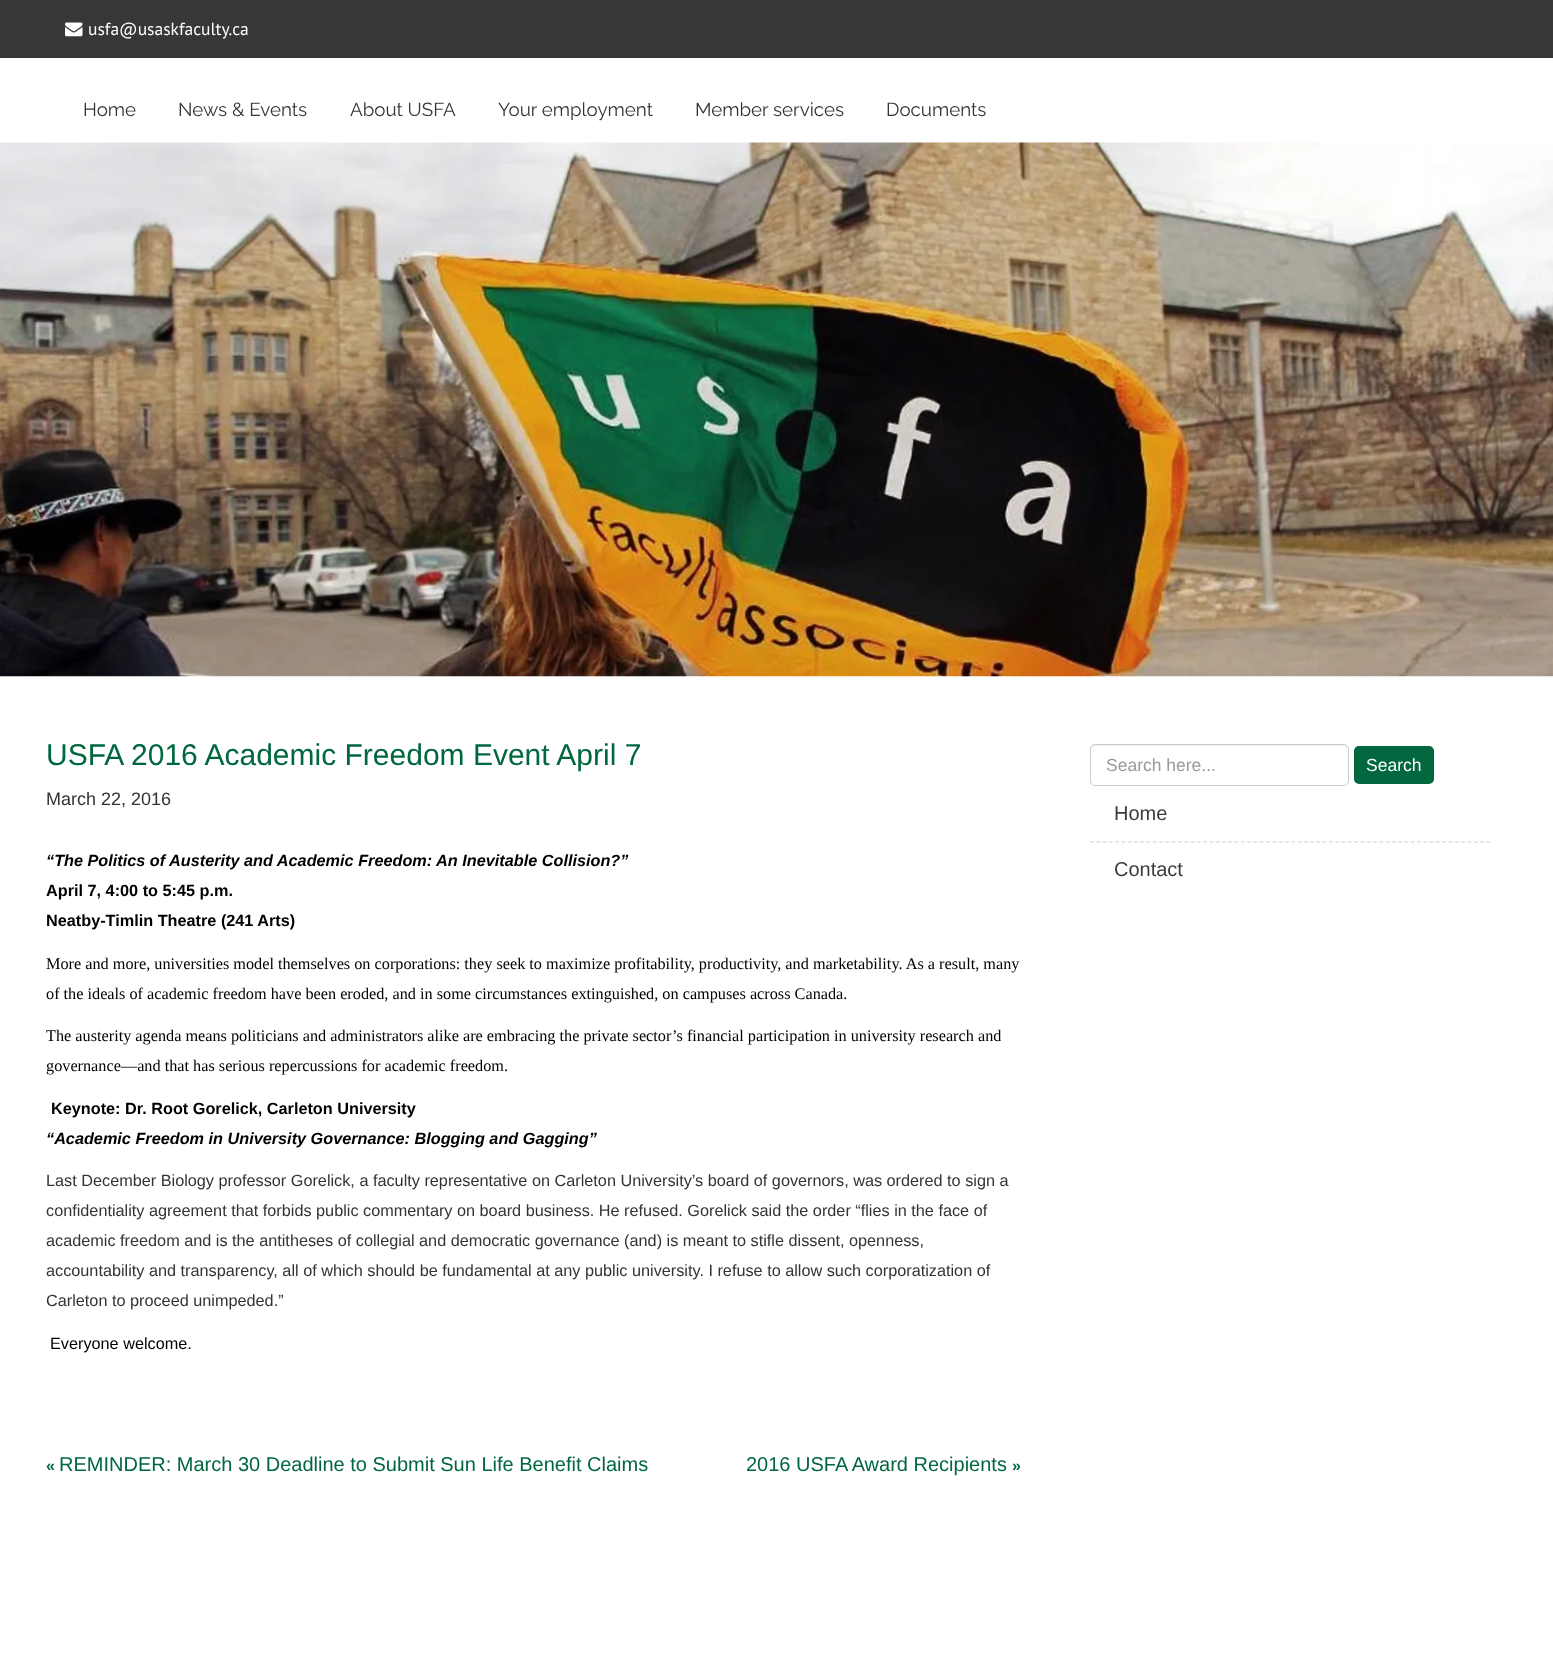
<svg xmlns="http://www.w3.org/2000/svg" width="1553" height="1654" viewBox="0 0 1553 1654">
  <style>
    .t1 { font: 17.5px PT Sans; fill: #fff; }
    .t2 { font: 18.75px Raleway; fill: #333; }
    .t3 { font: 30px Liberation Sans; fill: #00673e; }
    .t4 { font: 18px Liberation Sans; fill: #333; }
    .t5 { font: italic bold 16.25px Liberation Sans; fill: #000; }
    .t6 { font: bold 16.25px Liberation Sans; fill: #000; }
    .t7 { font: 16.25px Liberation Serif; fill: #000; }
    .t8 { font: 16.25px Liberation Sans; fill: #333; }
    .t9 { font: 16.25px Liberation Sans; fill: #000; }
    .t10 { font: bold 16px Liberation Sans; fill: #00673e; }
    .t11 { font: 20px Liberation Sans; fill: #00673e; }
    .t12 { font: 17.5px Liberation Sans; fill: #999; }
    .t13 { font: 17.5px Liberation Sans; fill: #fff; }
    .t14 { font: 20px Liberation Sans; fill: #3b3b3b; }
  </style>
  <rect width="100%" height="100%" fill="#fff"/>
  <rect x="0" y="0" width="1553" height="58" fill="#373737"/>
  <image x="65" y="22" width="18" height="15" href="images/1.png"/>
  <text x="88" y="35" class="t1">usfa@usaskfaculty.ca</text>
  <text x="83" y="116" class="t2">Home</text>
  <text x="178" y="116" class="t2">News &amp; Events</text>
  <text x="350" y="116" class="t2">About USFA</text>
  <text x="498" y="116" class="t2">Your employment</text>
  <text x="695" y="116" class="t2">Member services</text>
  <text x="886" y="116" class="t2">Documents</text>
  <image x="0" y="142" width="1553" height="535" href="images/2.png"/>
  <text x="46" y="765" class="t3">USFA 2016 Academic Freedom Event April 7</text>
  <text x="46" y="805" class="t4">March 22, 2016</text>
  <text x="46" y="866" class="t5">“The Politics of Austerity and Academic Freedom: An Inevitable Collision?”</text>
  <text x="46" y="896" class="t6">April 7, 4:00 to 5:45 p.m.</text>
  <text x="46" y="926" class="t6">Neatby-Timlin Theatre (241 Arts)</text>
  <text x="46" y="969" class="t7">More and more, universities model themselves on corporations: they seek to maximize profitability, productivity, and marketability. As a result, many</text>
  <text x="46" y="999" class="t7">of the ideals of academic freedom have been eroded, and in some circumstances extinguished, on campuses across Canada.</text>
  <text x="46" y="1041" class="t7">The austerity agenda means politicians and administrators alike are embracing the private sector’s financial participation in university research and</text>
  <text x="46" y="1071" class="t7">governance—and that has serious repercussions for academic freedom.</text>
  <text x="51" y="1114" class="t6">Keynote: Dr. Root Gorelick, Carleton University</text>
  <text x="46" y="1144" class="t5">“Academic Freedom in University Governance: Blogging and Gagging”</text>
  <text x="46" y="1186" class="t8">Last December Biology professor Gorelick, a faculty representative on Carleton University’s board of governors, was ordered to sign a</text>
  <text x="46" y="1216" class="t8">confidentiality agreement that forbids public commentary on board business. He refused. Gorelick said the order “flies in the face of</text>
  <text x="46" y="1246" class="t8">academic freedom and is the antitheses of collegial and democratic governance (and) is meant to stifle dissent, openness,</text>
  <text x="46" y="1276" class="t8">accountability and transparency, all of which should be fundamental at any public university. I refuse to allow such corporatization of</text>
  <text x="46" y="1306" class="t8">Carleton to proceed unimpeded.”</text>
  <text x="50" y="1349" class="t9">Everyone welcome.</text>
  <text x="46" y="1471" class="t10">«</text>
  <text x="59" y="1471" class="t11">REMINDER: March 30 Deadline to Submit Sun Life Benefit Claims</text>
  <text x="746" y="1471" class="t11">2016 USFA Award Recipients</text>
  <text x="1012" y="1471" class="t10">»</text>
  <path d="M1095 746H1345L1347 748L1348 750V749C1348 747 1346 745 1344 745H1095C1093 745 1091 747 1091 749V750C1091 748 1093 746 1095 746Z" fill="#ececec"/>
  <rect x="1090.5" y="744.5" width="258" height="41" rx="4.5" fill="none" stroke="#ccc"/>
  <text x="1106" y="771" class="t12">Search here...</text>
  <rect x="1354" y="746" width="80" height="38" rx="5" fill="#00673e"/>
  <text x="1366" y="771" class="t13">Search</text>
  <path d="M1090 842H1490" fill="none" stroke="#d0cfcf" stroke-width="1.2" stroke-dasharray="3.75 2.54"/>
  <text x="1114" y="820" class="t14">Home</text>
  <text x="1114" y="876" class="t14">Contact</text>
</svg>
